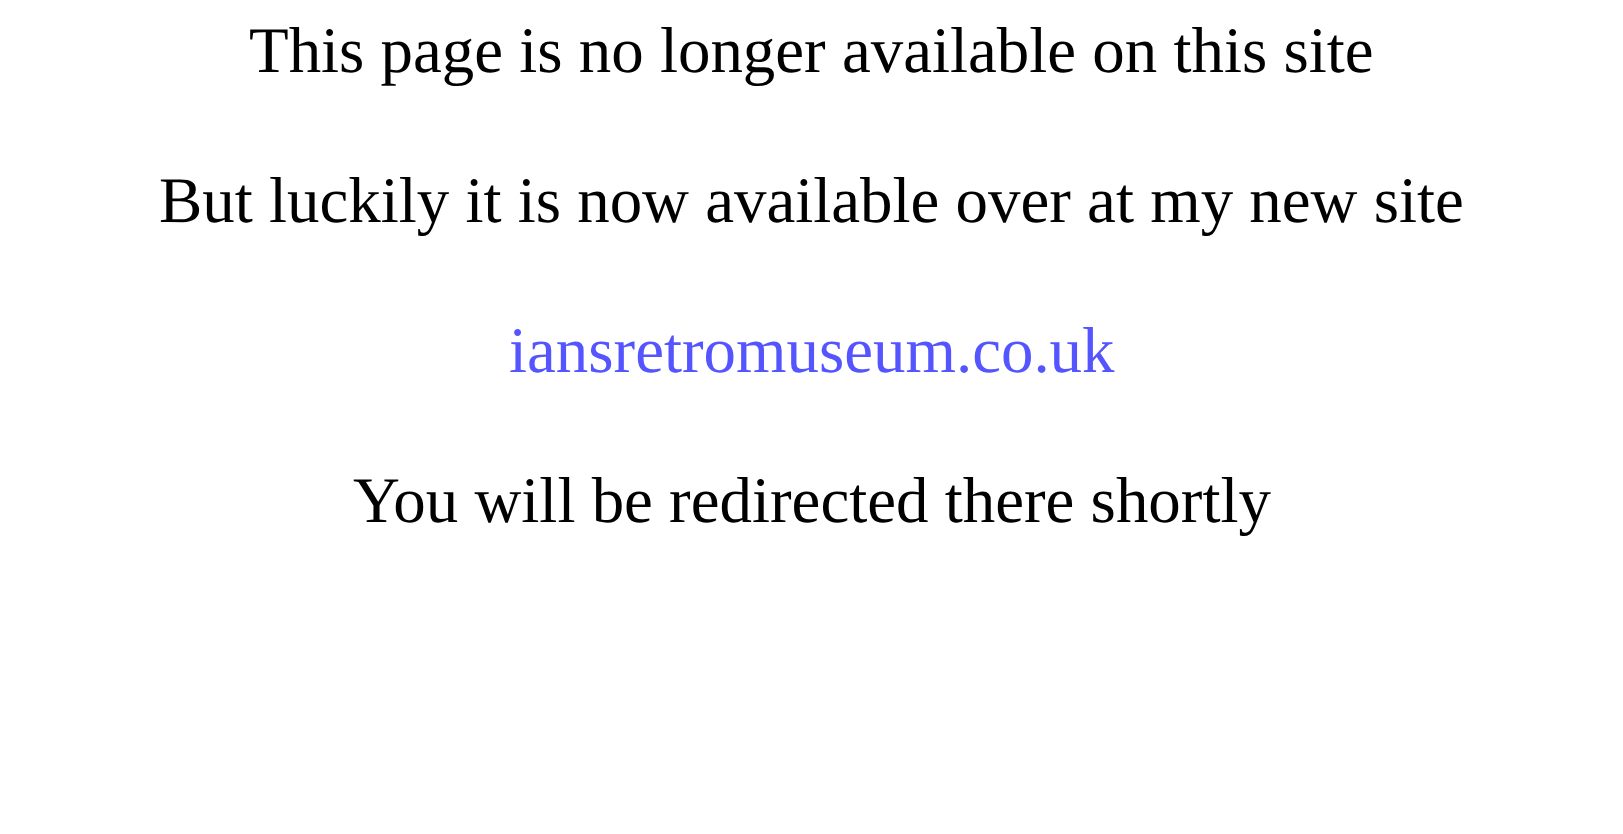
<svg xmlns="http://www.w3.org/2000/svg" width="1623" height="834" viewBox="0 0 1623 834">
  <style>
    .t1 { font: 64.9px Liberation Serif; fill: #000; }
    .t2 { font: 64.9px Liberation Serif; fill: #55f; }
  </style>
  <rect width="100%" height="100%" fill="#fff"/>
  <text x="249" y="72" class="t1">This page is no longer available on this site</text>
  <text x="159" y="222" class="t1">But luckily it is now available over at my new site</text>
  <text x="509" y="372" class="t2">iansretromuseum.co.uk</text>
  <text x="353" y="522" class="t1">You will be redirected there shortly</text>
</svg>
